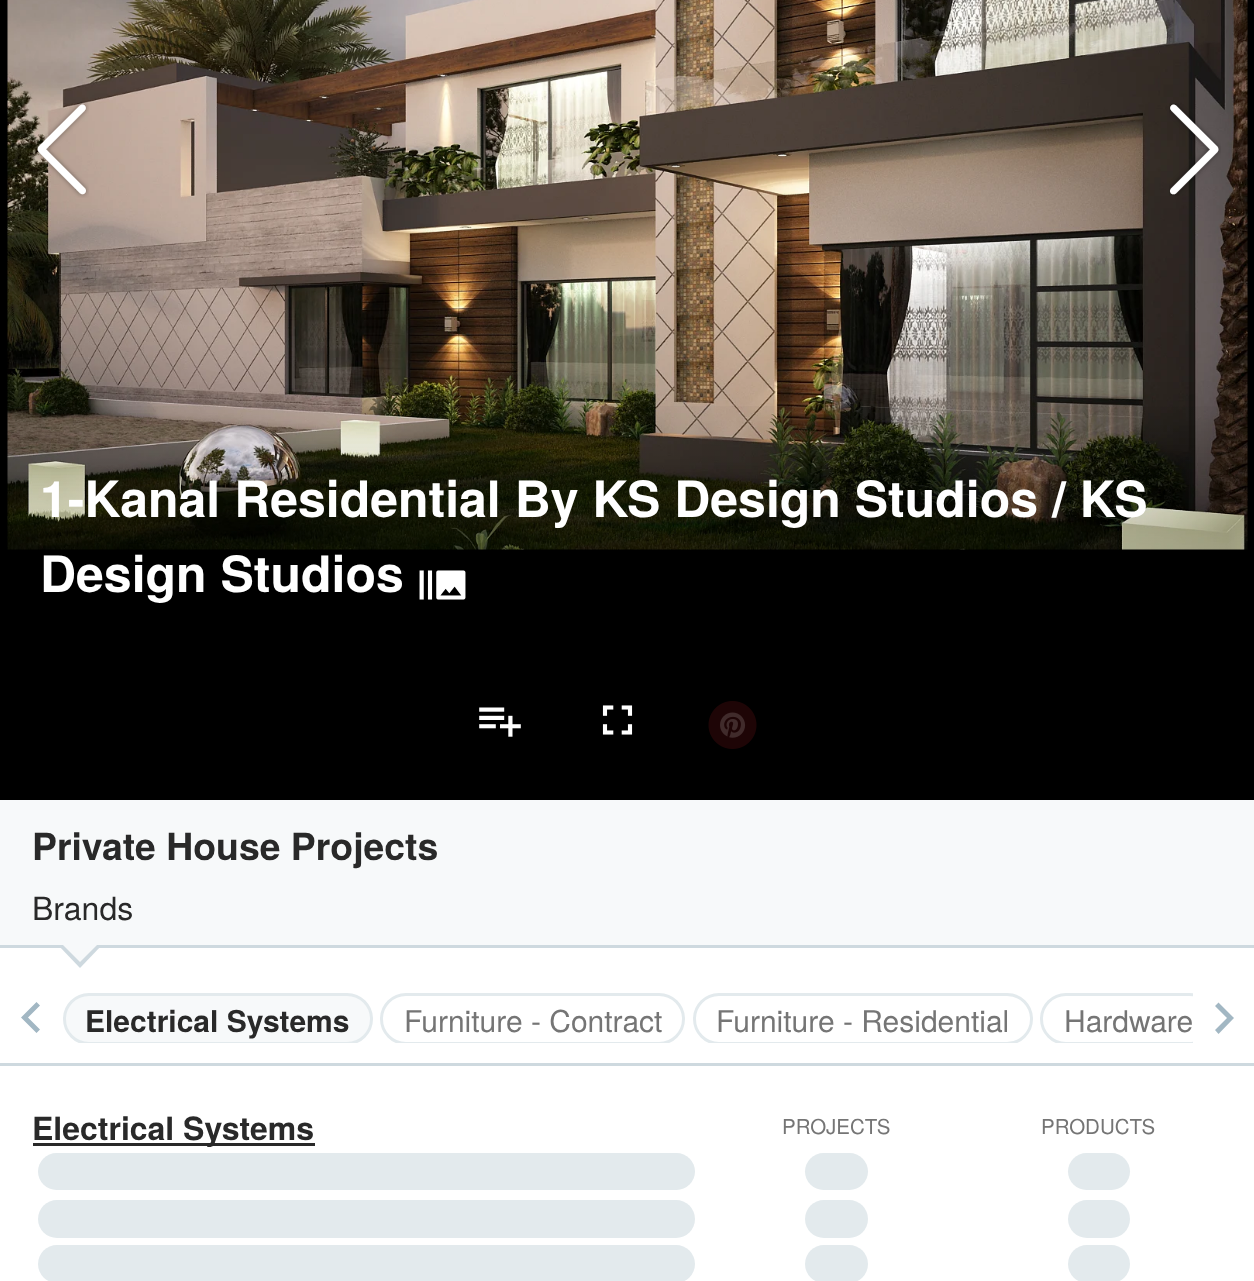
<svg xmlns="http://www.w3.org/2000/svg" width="1254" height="1281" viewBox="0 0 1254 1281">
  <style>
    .t1 { font: bold 50px TeX Gyre Heros; fill: #fff; }
    .t2 { font: bold 37.4px TeX Gyre Heros; fill: #292929; }
    .t3 { font: 32px TeX Gyre Heros; fill: #292929; }
    .t4 { font: bold 30px TeX Gyre Heros; fill: #292929; }
    .t5 { font: 30px TeX Gyre Heros; fill: #757575; }
    .t6 { font: bold 32px TeX Gyre Heros; fill: #292929; }
    .t7 { font: 20.5px TeX Gyre Heros; fill: #757575; }
  </style>
  <defs>
    <linearGradient id="g1" gradientUnits="userSpaceOnUse" x1="628" y1="800" x2="628" y2="388"><stop offset="0" stop-color="#000" stop-opacity="0.5"/><stop offset="1" stop-color="#000" stop-opacity="0"/></linearGradient>
    <clipPath id="clip1"><rect x="63" y="980" width="1130" height="63"/></clipPath>
  </defs>
  <rect width="100%" height="100%" fill="#fff"/>
  <rect x="0" y="0" width="1254" height="800" fill="#000"/>
  <image x="7" y="0" width="1241" height="550" href="images/1.png"/>
  <image x="35" y="102" width="54" height="96" href="images/2.png"/>
  <image x="1169" y="103" width="52" height="93" href="images/3.png"/>
  <rect x="7" y="406" width="1241" height="144" fill="url(#g1)"/>
  <image x="479" y="707" width="42" height="30" href="images/4.png"/>
  <image x="602" y="705" width="31" height="30" href="images/5.png"/>
  <image x="708" y="701" width="49" height="48" href="images/6.png"/>
  <text x="40" y="517" class="t1">1-Kanal Residential By KS Design Studios / KS</text>
  <text x="40" y="592" class="t1">Design Studios</text>
  <image x="419" y="570" width="47" height="30" href="images/7.png"/>
  <rect x="0" y="800" width="1254" height="145" fill="#f7f9fa"/>
  <rect x="0" y="945" width="1254" height="3" fill="#ced9df"/>
  <text x="32" y="860" class="t2">Private House Projects</text>
  <text x="32" y="920" class="t3">Brands</text>
  <path d="M58 945H102L80 968Z" fill="#ced9df"/>
  <path d="M60 942H100L80 962Z" fill="#f7f9fa"/>
  <path d="M40 1029.5L36.5 1033L21 1017.5L36.5 1002L40 1005.5L28 1017.5Z" fill="#a2b7c3"/>
  <g clip-path="url(#clip1)">
    <rect x="64.5" y="994.5" width="307" height="49" rx="24.5" fill="#f7f9fa" stroke="#e3eaed" stroke-width="3"/>
  </g>
  <text x="85" y="1032" class="t4">Electrical Systems</text>
  <g clip-path="url(#clip1)">
    <rect x="381.5" y="994.5" width="302" height="49" rx="24.5" fill="none" stroke="#e3eaed" stroke-width="3"/>
  </g>
  <text x="404" y="1032" class="t5">Furniture - Contract</text>
  <g clip-path="url(#clip1)">
    <rect x="694.5" y="994.5" width="337" height="49" rx="24.5" fill="none" stroke="#e3eaed" stroke-width="3"/>
  </g>
  <text x="716" y="1032" class="t5">Furniture - Residential</text>
  <g clip-path="url(#clip1)">
    <rect x="1041.5" y="994.5" width="172" height="49" rx="24.5" fill="none" stroke="#e3eaed" stroke-width="3"/>
  </g>
  <text x="1064" y="1032" class="t5">Hardware</text>
  <path d="M1215 1030L1227 1018L1215 1006L1218.5 1002.5L1234 1018L1218.5 1034Z" fill="#a2b7c3"/>
  <rect x="0" y="1063" width="1254" height="3" fill="#ced9df"/>
  <rect x="33" y="1143" width="282" height="3" fill="#292929"/>
  <text x="32" y="1140" class="t6">Electrical Systems</text>
  <text x="782" y="1134" class="t7">PROJECTS</text>
  <text x="1041" y="1134" class="t7">PRODUCTS</text>
  <rect x="38" y="1153" width="657" height="37" rx="18.5" fill="#e3eaed"/>
  <rect x="805" y="1153" width="63" height="37" rx="18.5" fill="#e3eaed"/>
  <rect x="1068" y="1153" width="62" height="37" rx="18.5" fill="#e3eaed"/>
  <rect x="38" y="1200" width="657" height="38" rx="19" fill="#e3eaed"/>
  <rect x="805" y="1200" width="63" height="38" rx="19" fill="#e3eaed"/>
  <rect x="1068" y="1200" width="62" height="38" rx="19" fill="#e3eaed"/>
  <rect x="38" y="1245" width="657" height="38" rx="19" fill="#e3eaed"/>
  <rect x="805" y="1245" width="63" height="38" rx="19" fill="#e3eaed"/>
  <rect x="1068" y="1245" width="62" height="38" rx="19" fill="#e3eaed"/>
</svg>
